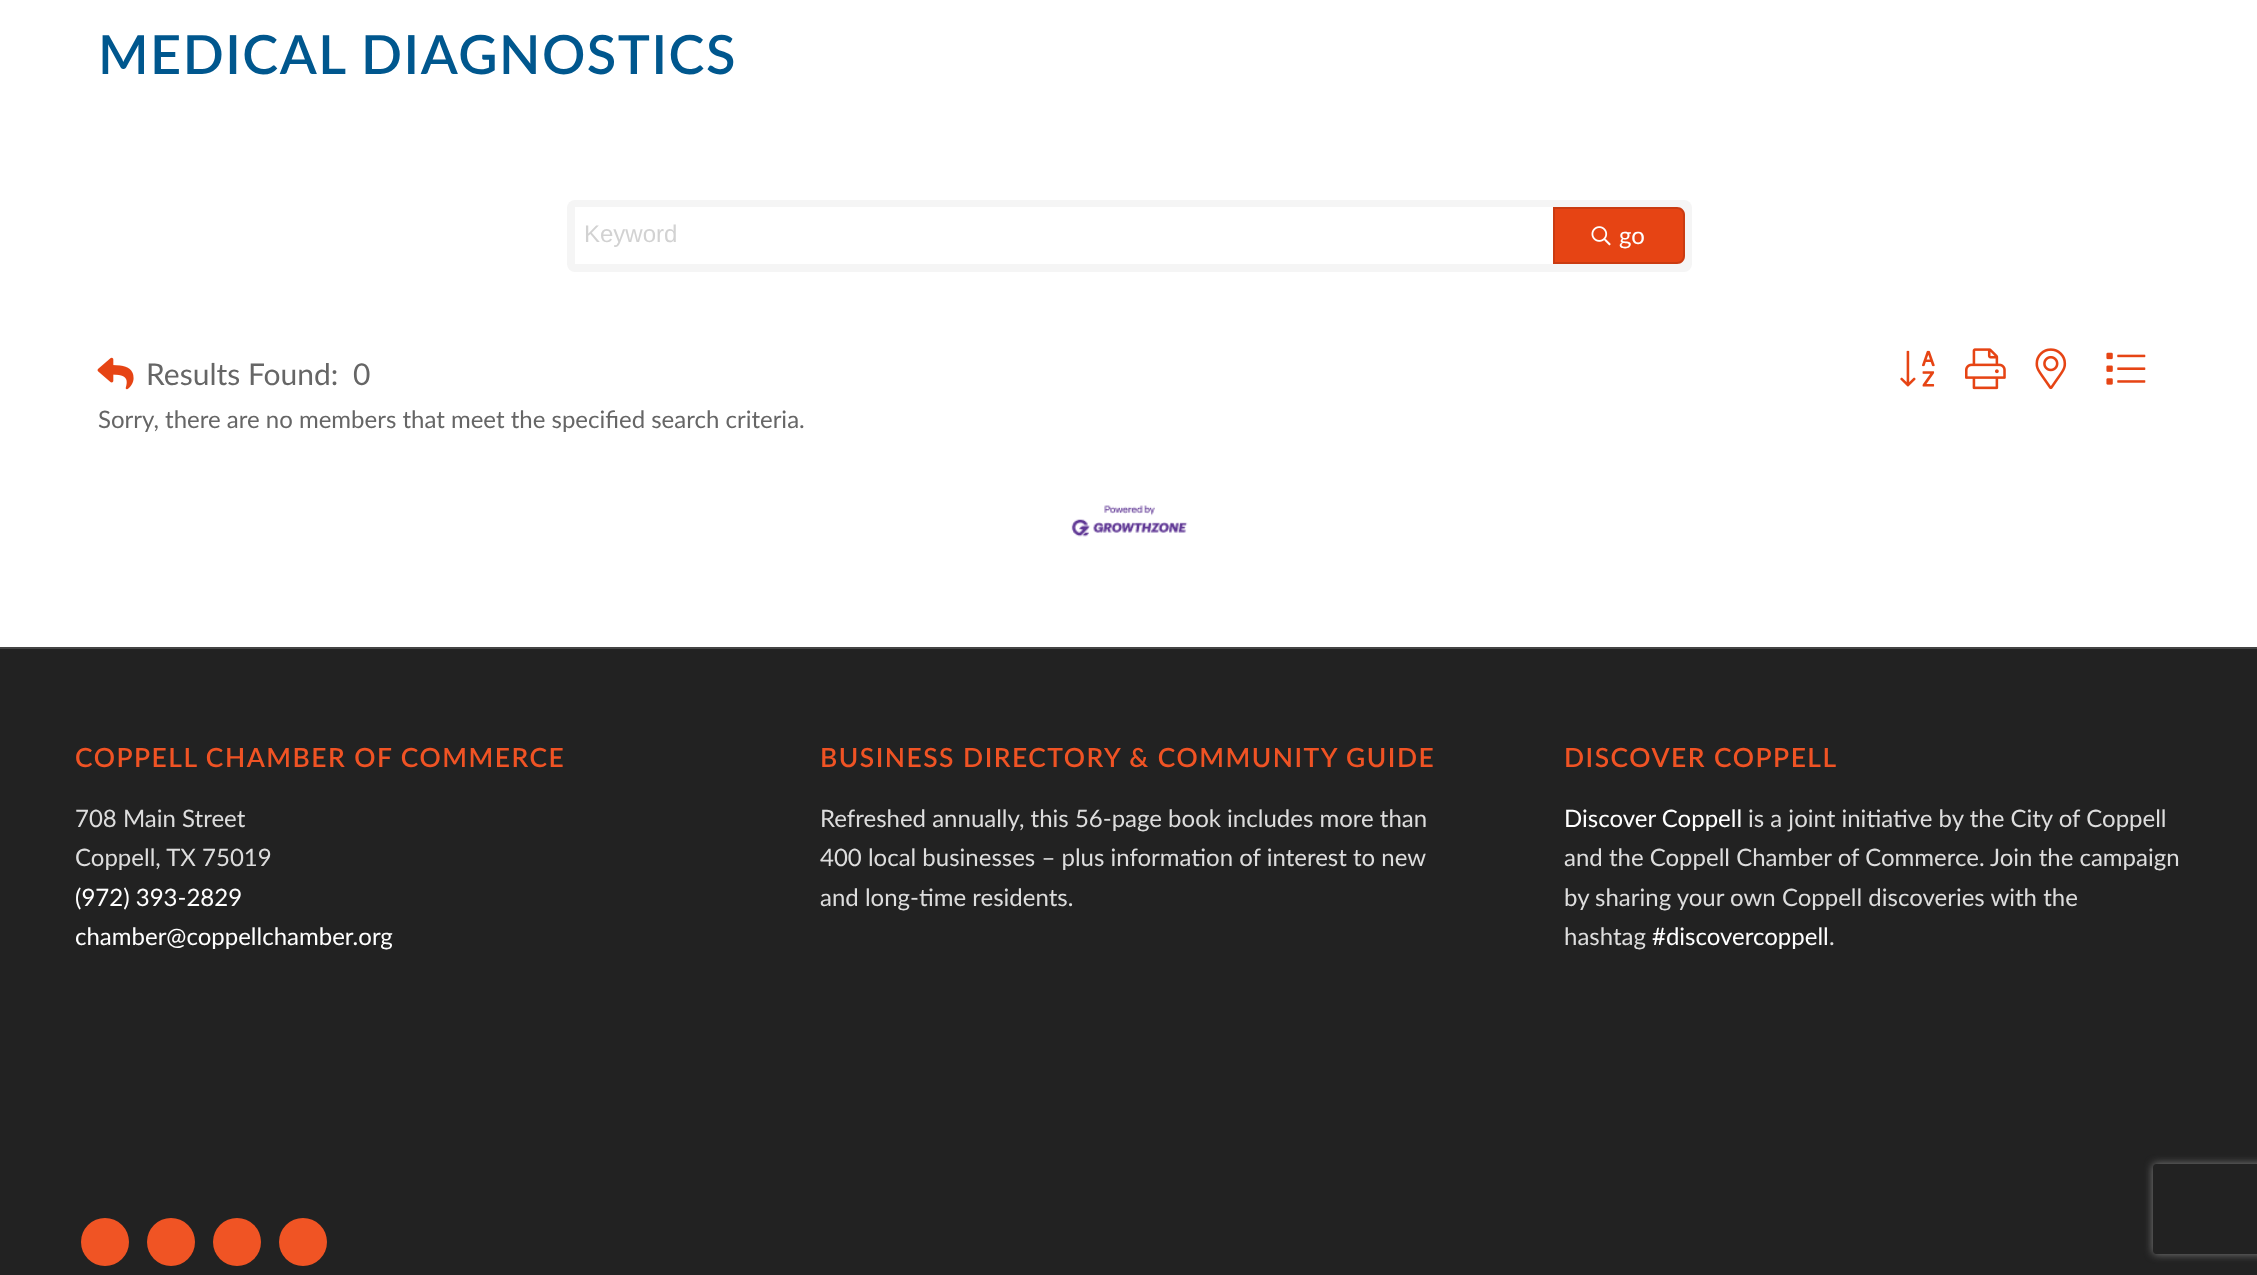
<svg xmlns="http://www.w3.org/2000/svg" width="2257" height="1275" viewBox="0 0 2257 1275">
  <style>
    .t1 { font: 600 54px Lato; letter-spacing: 1.5px; fill: #00578e; }
    .t2 { font: 24px Liberation Sans; fill: #d2d2d2; }
    .t3 { font: 24px Lato; fill: #fff; }
    .t4 { font: 30px Lato; fill: #666; }
    .t5 { font: 24px Lato; fill: #666; }
    .t6 { font: 600 26.4px Lato; letter-spacing: 1.5px; fill: #f05324; }
    .t7 { font: 24px Lato; fill: #ddd; }
  </style>
  <defs>
    <clipPath id="clip1"><path d="M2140 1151H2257V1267H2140ZM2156 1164H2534C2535.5 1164 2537 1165.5 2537 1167V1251C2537 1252.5 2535.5 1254 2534 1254H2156C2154.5 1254 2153 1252.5 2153 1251V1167C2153 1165.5 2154.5 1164 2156 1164Z" clip-rule="evenodd"/></clipPath>
  </defs>
  <rect width="100%" height="100%" fill="#fff"/>
  <text x="98" y="74" class="t1">MEDICAL DIAGNOSTICS</text>
  <rect x="567" y="200" width="1125" height="72" rx="8" fill="#f5f5f5"/>
  <rect x="575" y="207" width="978" height="57" fill="#fff"/>
  <text x="584" y="242" class="t2">Keyword</text>
  <path d="M1553 207H1677C1681.5 207 1685 210.5 1685 215V256C1685 260.5 1681.5 264 1677 264H1553Z" fill="#e64414"/>
  <path d="M1554 208H1677C1681 208 1684 211 1684 215V256C1684 260 1681 263 1677 263H1554Z" fill="none" stroke="#0000001f" stroke-width="2"/>
  <image x="1591" y="226" width="20" height="20" href="images/1.png"/>
  <text x="1619" y="244" class="t3">go</text>
  <image x="97" y="357" width="37" height="33" href="images/2.png"/>
  <text x="146" y="385" class="t4">Results Found:</text>
  <text x="353" y="385" class="t4">0</text>
  <image x="1900" y="350" width="35" height="37" href="images/3.png"/>
  <image x="1965" y="348" width="41" height="42" href="images/4.png"/>
  <image x="2035" y="348" width="32" height="42" href="images/5.png"/>
  <image x="2106" y="352" width="40" height="33" href="images/6.png"/>
  <text x="98" y="428" class="t5">Sorry, there are no members that meet the specified search criteria.</text>
  <image x="1071" y="505" width="117" height="32" href="images/7.png"/>
  <rect x="0" y="649" width="2257" height="626" fill="#222"/>
  <rect x="0" y="647" width="2257" height="2" fill="#444"/>
  <text x="75" y="767" class="t6">COPPELL CHAMBER OF COMMERCE</text>
  <text x="75" y="827" class="t7">708 Main Street</text>
  <text x="75" y="866" class="t7">Coppell, TX 75019</text>
  <text x="75" y="906" class="t3">(972) 393-2829</text>
  <text x="75" y="945" class="t3">chamber@coppellchamber.org</text>
  <circle cx="105" cy="1242" r="24" fill="#f05424"/>
  <circle cx="171" cy="1242" r="24" fill="#f05424"/>
  <circle cx="237" cy="1242" r="24" fill="#f05424"/>
  <circle cx="303" cy="1242" r="24" fill="#f05424"/>
  <text x="820" y="767" class="t6">BUSINESS DIRECTORY &amp; COMMUNITY GUIDE</text>
  <text x="820" y="827" class="t7">Refreshed annually, this 56-page book includes more than</text>
  <text x="820" y="866" class="t7">400 local businesses – plus information of interest to new</text>
  <text x="820" y="906" class="t7">and long-time residents.</text>
  <text x="1564" y="767" class="t6">DISCOVER COPPELL</text>
  <text x="1564" y="827" class="t3">Discover Coppell</text>
  <text x="1748" y="827" class="t7">is a joint initiative by the City of Coppell</text>
  <text x="1564" y="866" class="t7">and the Coppell Chamber of Commerce. Join the campaign</text>
  <text x="1564" y="906" class="t7">by sharing your own Coppell discoveries with the</text>
  <text x="1564" y="945" class="t7">hashtag</text>
  <text x="1652" y="945" class="t3">#discovercoppell</text>
  <text x="1829" y="945" class="t7">.</text>
  <g clip-path="url(#clip1)">
    <rect x="2153" y="1164" width="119" height="90" rx="3" fill="#808080" filter="blur(4px)"/>
  </g>
</svg>
